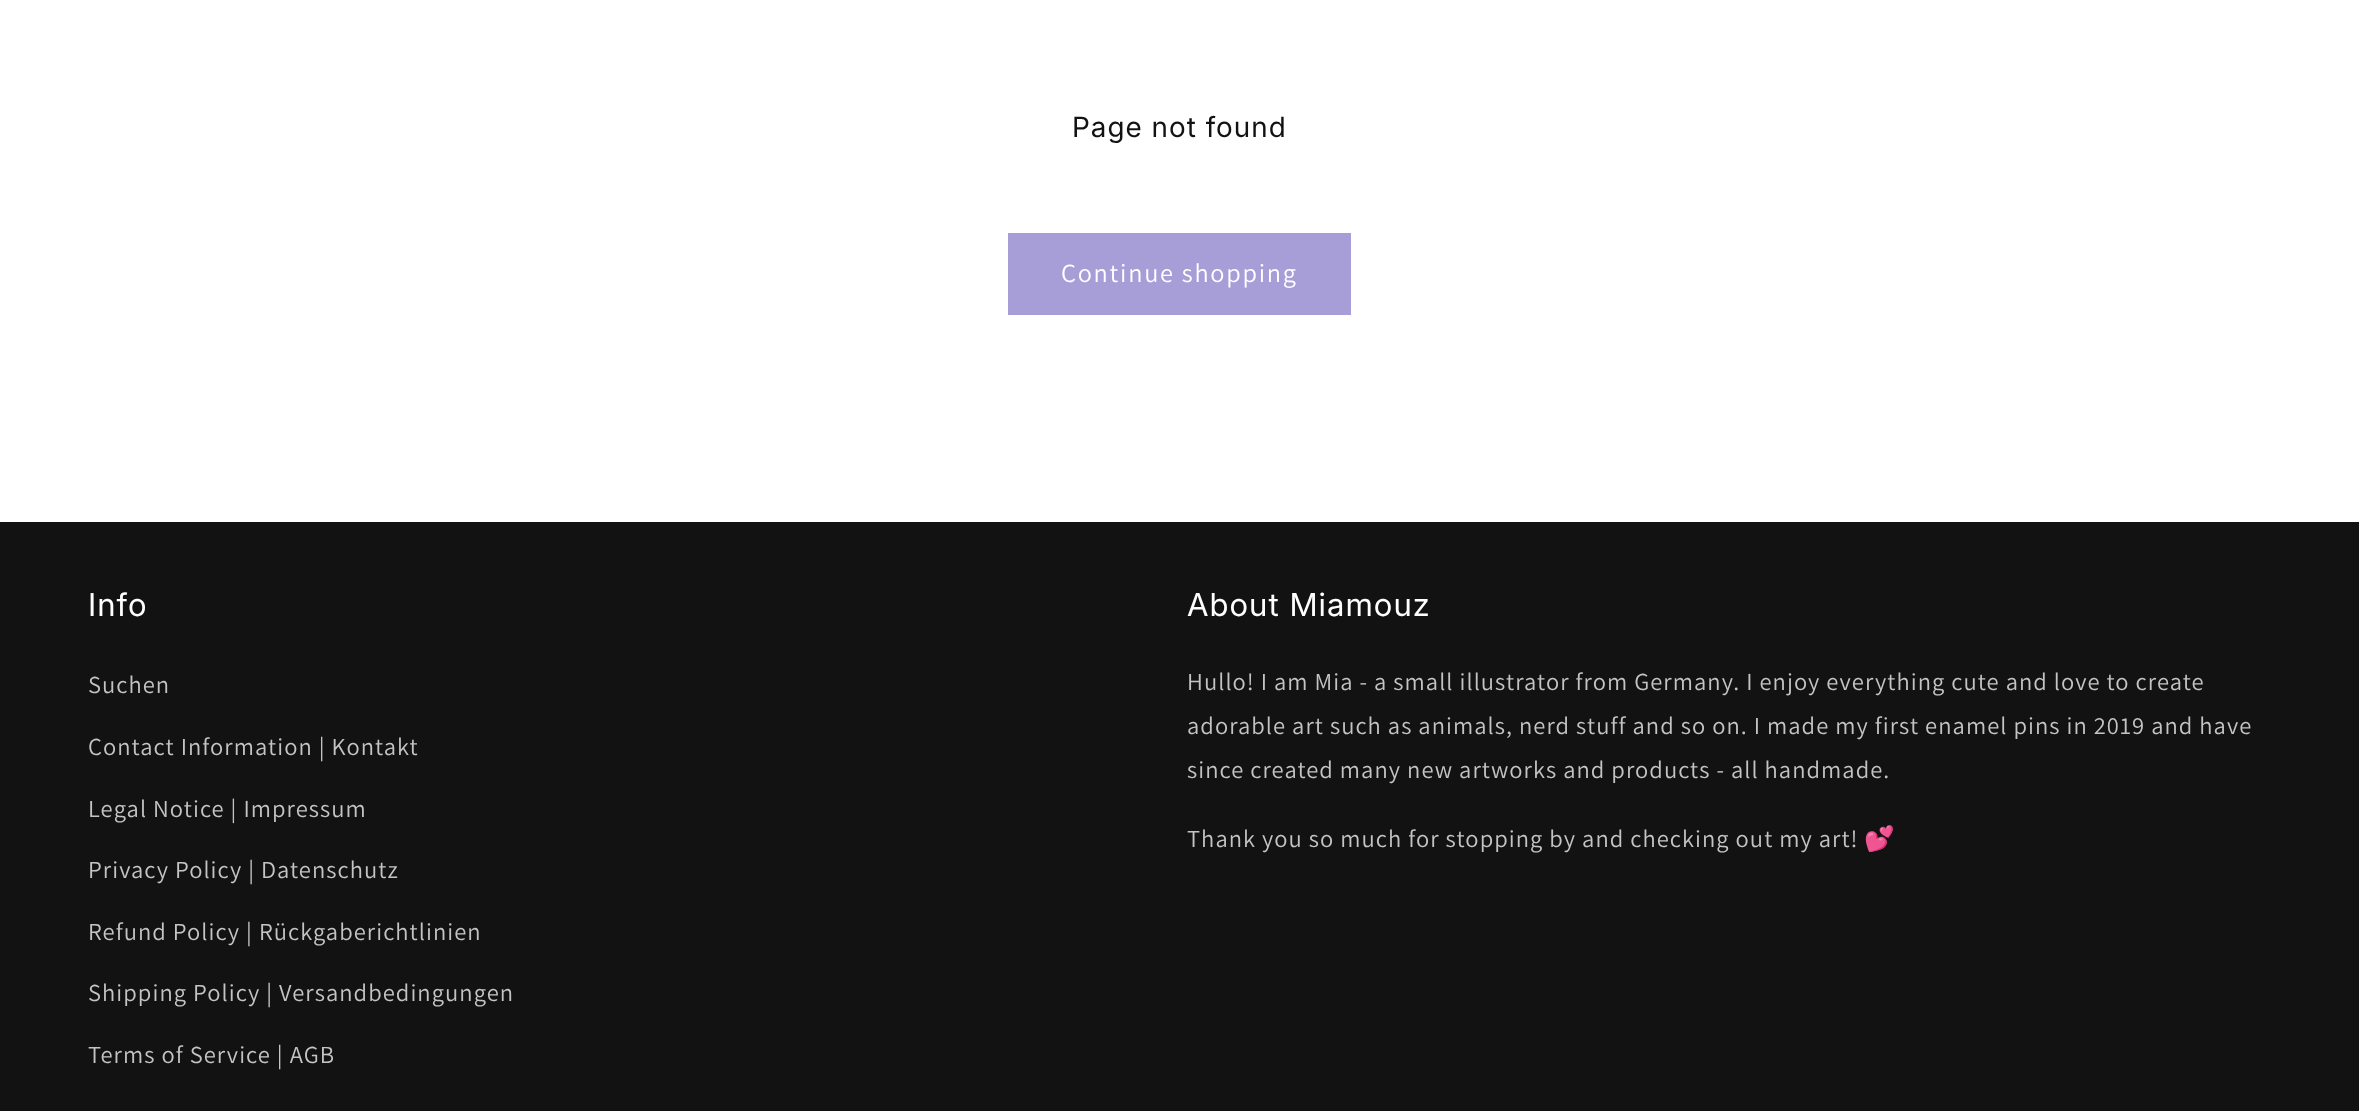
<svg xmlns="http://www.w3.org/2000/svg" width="2359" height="1111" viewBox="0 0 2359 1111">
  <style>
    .t1 { font: 28px Inter; letter-spacing: 1.05px; fill: #121212; }
    .t2 { font: 26.25px Assistant; letter-spacing: 1.75px; fill: #fff; }
    .t3 { font: 31.5px 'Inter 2'; letter-spacing: 1.05px; fill: #fff; }
    .t4 { font: 24.5px Assistant; letter-spacing: 1.05px; fill: #c4c4c4; }
    .t5 { font: 24.5px Noto Color Emoji; letter-spacing: 1.05px; fill: #c4c4c4; }
  </style>
  <rect width="100%" height="100%" fill="#fff"/>
  <text x="1072" y="137" class="t1">Page not found</text>
  <rect x="1008" y="233" width="343" height="82" fill="#a79dd7"/>
  <text x="1061" y="282" class="t2">Continue shopping</text>
  <rect x="0" y="522" width="2359" height="589" fill="#121212"/>
  <text x="88" y="616" class="t3">Info</text>
  <text x="88" y="693" class="t4">Suchen</text>
  <text x="88" y="755" class="t4">Contact Information | Kontakt</text>
  <text x="88" y="817" class="t4">Legal Notice | Impressum</text>
  <text x="88" y="878" class="t4">Privacy Policy | Datenschutz</text>
  <text x="88" y="940" class="t4">Refund Policy | Rückgaberichtlinien</text>
  <text x="88" y="1001" class="t4">Shipping Policy | Versandbedingungen</text>
  <text x="88" y="1063" class="t4">Terms of Service | AGB</text>
  <text x="1187" y="616" class="t3">About Miamouz</text>
  <text x="1187" y="690" class="t4">Hullo! I am Mia - a small illustrator from Germany. I enjoy everything cute and love to create</text>
  <text x="1187" y="734" class="t4">adorable art such as animals, nerd stuff and so on. I made my first enamel pins in 2019 and have</text>
  <text x="1187" y="778" class="t4">since created many new artworks and products - all handmade.</text>
  <text x="1187" y="847" class="t4">Thank you so much for stopping by and checking out my art!</text>
  <text x="1864" y="847" class="t5">💕</text>
</svg>
